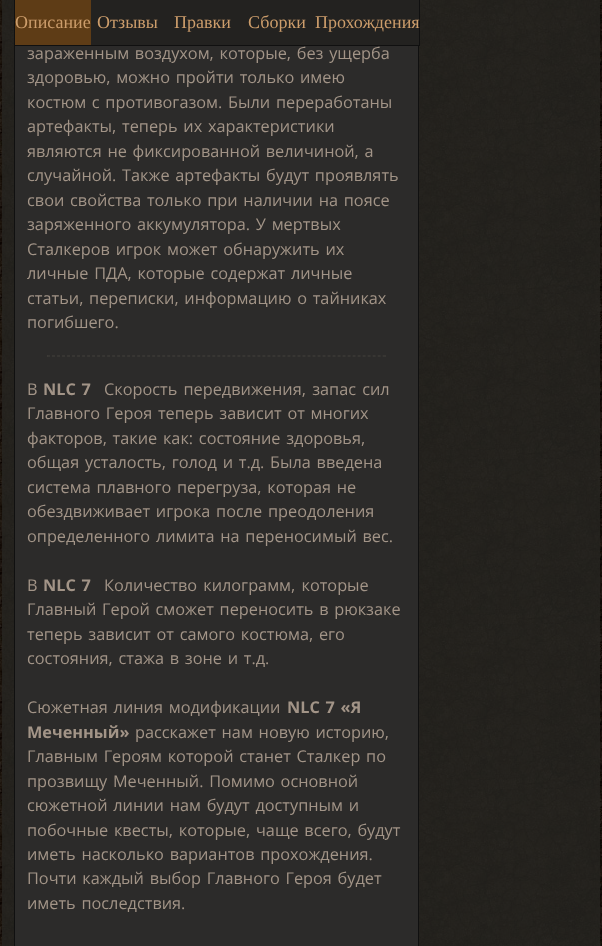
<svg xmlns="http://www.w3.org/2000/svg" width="602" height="946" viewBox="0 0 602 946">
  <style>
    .t1 { font: 18px Liberation Serif; fill: #cc9d6b; }
    .t2 { font: 16.3px Open Sans; fill: #a29487; }
    .t3 { font: bold 16.3px Open Sans; fill: #a29487; }
  </style>
  <rect width="100%" height="100%" fill="#fff"/>
  <image x="0" y="0" width="602" height="946" href="images/1.png"/>
  <rect x="15" y="46" width="403" height="900" fill="#2c2b2a"/>
  <rect x="14.5" y="-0.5" width="404" height="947" fill="none" stroke="#101010"/>
  <rect x="15" y="0" width="76" height="45" fill="#5e3c16"/>
  <rect x="14" y="45" width="301" height="1" fill="#101010"/>
  <text x="15" y="28" class="t1">Описание</text>
  <rect x="91" y="0" width="328" height="45" fill="#232220"/>
  <text x="97" y="28" class="t1">Отзывы</text>
  <text x="174" y="28" class="t1">Правки</text>
  <text x="248" y="28" class="t1">Сборки</text>
  <rect x="419" y="0" width="1" height="46" fill="#101010"/>
  <rect x="315" y="45" width="105" height="1" fill="#101010"/>
  <text x="315" y="28" class="t1">Прохождения</text>
  <text x="27" y="59" word-spacing="1.5" class="t2">зараженным воздухом, которые, без ущерба</text>
  <text x="27" y="83" word-spacing="1.5" class="t2">здоровью, можно пройти только имею</text>
  <text x="27" y="108" word-spacing="1.5" class="t2">костюм с противогазом. Были переработаны</text>
  <text x="27" y="132" word-spacing="1.5" class="t2">артефакты, теперь их характеристики</text>
  <text x="27" y="157" word-spacing="1.5" class="t2">являются не фиксированной величиной, а</text>
  <text x="27" y="181" word-spacing="1.5" class="t2">случайной. Также артефакты будут проявлять</text>
  <text x="27" y="206" word-spacing="1.5" class="t2">свои свойства только при наличии на поясе</text>
  <text x="27" y="230" word-spacing="1.5" class="t2">заряженного аккумулятора. У мертвых</text>
  <text x="27" y="255" word-spacing="1.5" class="t2">Сталкеров игрок может обнаружить их</text>
  <text x="27" y="279" word-spacing="1.5" class="t2">личные ПДА, которые содержат личные</text>
  <text x="27" y="304" word-spacing="1.5" class="t2">статьи, переписки, информацию о тайниках</text>
  <text x="27" y="328" class="t2">погибшего.</text>
  <path d="M47 355.5H386" fill="none" stroke="#383633" stroke-dasharray="3 2.01"/>
  <path d="M386 355V357L385 356Z" fill="#766d6529"/>
  <path d="M47 356.5H386" fill="none" stroke="#766d6529" stroke-dasharray="3 2.01"/>
  <path d="M47 357V355L48 356Z" fill="#423f3b"/>
  <text x="27" y="395" class="t2">В</text>
  <text x="43" y="395" word-spacing="1.5" class="t3">NLC 7</text>
  <text x="104" y="395" word-spacing="2" class="t2">Скорость передвижения, запас сил</text>
  <text x="27" y="419" word-spacing="1.5" class="t2">Главного Героя теперь зависит от многих</text>
  <text x="27" y="444" word-spacing="1.5" class="t2">факторов, такие как: состояние здоровья,</text>
  <text x="27" y="468" word-spacing="1.5" class="t2">общая усталость, голод и т.д. Была введена</text>
  <text x="27" y="493" word-spacing="1.5" class="t2">система плавного перегруза, которая не</text>
  <text x="27" y="517" word-spacing="1.5" class="t2">обездвиживает игрока после преодоления</text>
  <text x="27" y="542" word-spacing="1.5" class="t2">определенного лимита на переносимый вес.</text>
  <text x="27" y="591" class="t2">В</text>
  <text x="43" y="591" word-spacing="1.5" class="t3">NLC 7</text>
  <text x="104" y="591" word-spacing="2" class="t2">Количество килограмм, которые</text>
  <text x="27" y="615" word-spacing="1.5" class="t2">Главный Герой сможет переносить в рюкзаке</text>
  <text x="27" y="640" word-spacing="1.5" class="t2">теперь зависит от самого костюма, его</text>
  <text x="27" y="664" word-spacing="1.5" class="t2">состояния, стажа в зоне и т.д.</text>
  <text x="27" y="713" word-spacing="1.5" class="t2">Сюжетная линия модификации</text>
  <text x="287" y="713" word-spacing="1.5" class="t3">NLC 7 «Я</text>
  <text x="27" y="738" class="t3">Меченный»</text>
  <text x="135" y="738" word-spacing="1.5" class="t2">расскажет нам новую историю,</text>
  <text x="27" y="762" word-spacing="1.5" class="t2">Главным Героям которой станет Сталкер по</text>
  <text x="27" y="787" word-spacing="1.5" class="t2">прозвищу Меченный. Помимо основной</text>
  <text x="27" y="811" word-spacing="1.5" class="t2">сюжетной линии нам будут доступным и</text>
  <text x="27" y="836" word-spacing="1.5" class="t2">побочные квесты, которые, чаще всего, будут</text>
  <text x="27" y="860" word-spacing="1.5" class="t2">иметь насколько вариантов прохождения.</text>
  <text x="27" y="884" word-spacing="1.5" class="t2">Почти каждый выбор Главного Героя будет</text>
  <text x="27" y="909" word-spacing="1.5" class="t2">иметь последствия.</text>
</svg>
